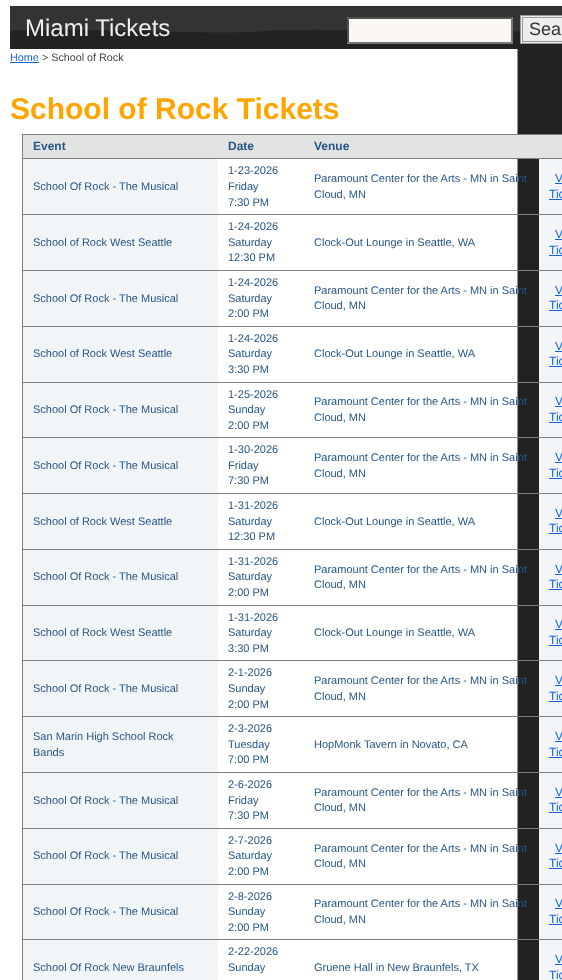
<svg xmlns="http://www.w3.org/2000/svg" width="562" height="980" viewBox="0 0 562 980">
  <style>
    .t1 { font: 24px Liberation Sans; fill: #eee; }
    .t2 { font: 18px Liberation Sans; fill: #333; }
    .t3 { font: 10.75px Liberation Sans; fill: #1664da; }
    .t4 { font: 10.75px Liberation Sans; fill: #444; }
    .t5 { font: bold 30px Liberation Sans; fill: #ffa500; }
    .t6 { font: bold 12px Liberation Sans; fill: #265686; }
    .t7 { font: 11px Liberation Sans; fill: #265686; }
    .t8 { font: 12px Liberation Sans; fill: #1664da; }
  </style>
  <rect width="100%" height="100%" fill="#fff"/>
  <image x="0" y="6" width="562" height="974" href="images/1.png"/>
  <rect x="10" y="6" width="552" height="23" fill="#333"/>
  <image x="10" y="29" width="552" height="20" href="images/2.png"/>
  <text x="25" y="36" class="t1">Miami Tickets</text>
  <rect x="347" y="17" width="166" height="27" fill="#fbf8f3"/>
  <path d="M347 17H513L511 19H349Z" fill="#4f4f4f"/>
  <path d="M513 17V44L511 42V19Z" fill="#767676"/>
  <path d="M513 44H347L349 42H511Z" fill="#767676"/>
  <path d="M347 44V17L349 19V42Z" fill="#4f4f4f"/>
  <rect x="520.5" y="15.5" width="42" height="28" fill="#eee" stroke="#999"/>
  <rect x="522.5" y="17.5" width="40" height="24" fill="none" stroke="#999"/>
  <text x="529" y="35" class="t2">Sea</text>
  <text x="10" y="61" class="t3">Home</text>
  <rect x="10" y="62" width="29" height="1" fill="#1664da"/>
  <text x="42" y="61" class="t4">&gt; School of Rock</text>
  <text x="10" y="119" class="t5">School of Rock Tickets</text>
  <rect x="22" y="134" width="540" height="1" fill="#808080"/>
  <rect x="22" y="134" width="1" height="846" fill="#808080"/>
  <rect x="23" y="135" width="539" height="23" fill="#e2e4e3"/>
  <text x="33" y="150" class="t6">Event</text>
  <text x="228" y="150" class="t6">Date</text>
  <text x="314" y="150" class="t6">Venue</text>
  <rect x="23" y="159" width="195" height="55" fill="#f2f5f7"/>
  <text x="33" y="190" class="t7">School Of Rock - The Musical</text>
  <text x="228" y="174" class="t7">1-23-2026</text>
  <text x="228" y="190" class="t7">Friday</text>
  <text x="228" y="206" class="t7">7:30 PM</text>
  <text x="314" y="182" class="t7">Paramount Center for the Arts - MN in Saint</text>
  <text x="314" y="198" class="t7">Cloud, MN</text>
  <rect x="539" y="159" width="23" height="55" fill="#f2f5f7"/>
  <rect x="22" y="158" width="540" height="1" fill="#808080"/>
  <text x="555" y="182" class="t8">V</text>
  <rect x="555" y="183" width="7" height="1" fill="#1664da"/>
  <text x="549" y="198" class="t8">Tic</text>
  <rect x="549" y="199" width="13" height="1" fill="#1664da"/>
  <rect x="23" y="215" width="195" height="55" fill="#f2f5f7"/>
  <text x="33" y="246" class="t7">School of Rock West Seattle</text>
  <text x="228" y="230" class="t7">1-24-2026</text>
  <text x="228" y="246" class="t7">Saturday</text>
  <text x="228" y="261" class="t7">12:30 PM</text>
  <text x="314" y="246" class="t7">Clock-Out Lounge in Seattle, WA</text>
  <rect x="539" y="215" width="23" height="55" fill="#f2f5f7"/>
  <rect x="22" y="214" width="540" height="1" fill="#808080"/>
  <text x="555" y="238" class="t8">V</text>
  <rect x="555" y="239" width="7" height="1" fill="#1664da"/>
  <text x="549" y="254" class="t8">Tic</text>
  <rect x="549" y="255" width="13" height="1" fill="#1664da"/>
  <rect x="23" y="271" width="195" height="55" fill="#f2f5f7"/>
  <text x="33" y="302" class="t7">School Of Rock - The Musical</text>
  <text x="228" y="286" class="t7">1-24-2026</text>
  <text x="228" y="302" class="t7">Saturday</text>
  <text x="228" y="317" class="t7">2:00 PM</text>
  <text x="314" y="294" class="t7">Paramount Center for the Arts - MN in Saint</text>
  <text x="314" y="309" class="t7">Cloud, MN</text>
  <rect x="539" y="271" width="23" height="55" fill="#f2f5f7"/>
  <rect x="22" y="270" width="540" height="1" fill="#808080"/>
  <text x="555" y="294" class="t8">V</text>
  <rect x="555" y="295" width="7" height="1" fill="#1664da"/>
  <text x="549" y="309" class="t8">Tic</text>
  <rect x="549" y="310" width="13" height="1" fill="#1664da"/>
  <rect x="23" y="327" width="195" height="55" fill="#f2f5f7"/>
  <text x="33" y="357" class="t7">School of Rock West Seattle</text>
  <text x="228" y="342" class="t7">1-24-2026</text>
  <text x="228" y="357" class="t7">Saturday</text>
  <text x="228" y="373" class="t7">3:30 PM</text>
  <text x="314" y="357" class="t7">Clock-Out Lounge in Seattle, WA</text>
  <rect x="539" y="327" width="23" height="55" fill="#f2f5f7"/>
  <rect x="22" y="326" width="540" height="1" fill="#808080"/>
  <text x="555" y="350" class="t8">V</text>
  <rect x="555" y="351" width="7" height="1" fill="#1664da"/>
  <text x="549" y="365" class="t8">Tic</text>
  <rect x="549" y="366" width="13" height="1" fill="#1664da"/>
  <rect x="23" y="383" width="195" height="54" fill="#f2f5f7"/>
  <text x="33" y="413" class="t7">School Of Rock - The Musical</text>
  <text x="228" y="398" class="t7">1-25-2026</text>
  <text x="228" y="413" class="t7">Sunday</text>
  <text x="228" y="429" class="t7">2:00 PM</text>
  <text x="314" y="405" class="t7">Paramount Center for the Arts - MN in Saint</text>
  <text x="314" y="421" class="t7">Cloud, MN</text>
  <rect x="539" y="383" width="23" height="54" fill="#f2f5f7"/>
  <rect x="22" y="382" width="540" height="1" fill="#808080"/>
  <text x="555" y="405" class="t8">V</text>
  <rect x="555" y="406" width="7" height="1" fill="#1664da"/>
  <text x="549" y="421" class="t8">Tic</text>
  <rect x="549" y="422" width="13" height="1" fill="#1664da"/>
  <rect x="23" y="438" width="195" height="55" fill="#f2f5f7"/>
  <text x="33" y="469" class="t7">School Of Rock - The Musical</text>
  <text x="228" y="453" class="t7">1-30-2026</text>
  <text x="228" y="469" class="t7">Friday</text>
  <text x="228" y="484" class="t7">7:30 PM</text>
  <text x="314" y="461" class="t7">Paramount Center for the Arts - MN in Saint</text>
  <text x="314" y="477" class="t7">Cloud, MN</text>
  <rect x="539" y="438" width="23" height="55" fill="#f2f5f7"/>
  <rect x="22" y="437" width="540" height="1" fill="#808080"/>
  <text x="555" y="461" class="t8">V</text>
  <rect x="555" y="462" width="7" height="1" fill="#1664da"/>
  <text x="549" y="477" class="t8">Tic</text>
  <rect x="549" y="478" width="13" height="1" fill="#1664da"/>
  <rect x="23" y="494" width="195" height="55" fill="#f2f5f7"/>
  <text x="33" y="525" class="t7">School of Rock West Seattle</text>
  <text x="228" y="509" class="t7">1-31-2026</text>
  <text x="228" y="525" class="t7">Saturday</text>
  <text x="228" y="540" class="t7">12:30 PM</text>
  <text x="314" y="525" class="t7">Clock-Out Lounge in Seattle, WA</text>
  <rect x="539" y="494" width="23" height="55" fill="#f2f5f7"/>
  <rect x="22" y="493" width="540" height="1" fill="#808080"/>
  <text x="555" y="517" class="t8">V</text>
  <rect x="555" y="518" width="7" height="1" fill="#1664da"/>
  <text x="549" y="532" class="t8">Tic</text>
  <rect x="549" y="533" width="13" height="1" fill="#1664da"/>
  <rect x="23" y="550" width="195" height="55" fill="#f2f5f7"/>
  <text x="33" y="580" class="t7">School Of Rock - The Musical</text>
  <text x="228" y="565" class="t7">1-31-2026</text>
  <text x="228" y="580" class="t7">Saturday</text>
  <text x="228" y="596" class="t7">2:00 PM</text>
  <text x="314" y="573" class="t7">Paramount Center for the Arts - MN in Saint</text>
  <text x="314" y="588" class="t7">Cloud, MN</text>
  <rect x="539" y="550" width="23" height="55" fill="#f2f5f7"/>
  <rect x="22" y="549" width="540" height="1" fill="#808080"/>
  <text x="555" y="573" class="t8">V</text>
  <rect x="555" y="574" width="7" height="1" fill="#1664da"/>
  <text x="549" y="588" class="t8">Tic</text>
  <rect x="549" y="589" width="13" height="1" fill="#1664da"/>
  <rect x="23" y="606" width="195" height="54" fill="#f2f5f7"/>
  <text x="33" y="636" class="t7">School of Rock West Seattle</text>
  <text x="228" y="621" class="t7">1-31-2026</text>
  <text x="228" y="636" class="t7">Saturday</text>
  <text x="228" y="652" class="t7">3:30 PM</text>
  <text x="314" y="636" class="t7">Clock-Out Lounge in Seattle, WA</text>
  <rect x="539" y="606" width="23" height="54" fill="#f2f5f7"/>
  <rect x="22" y="605" width="540" height="1" fill="#808080"/>
  <text x="555" y="628" class="t8">V</text>
  <rect x="555" y="629" width="7" height="1" fill="#1664da"/>
  <text x="549" y="644" class="t8">Tic</text>
  <rect x="549" y="645" width="13" height="1" fill="#1664da"/>
  <rect x="23" y="661" width="195" height="55" fill="#f2f5f7"/>
  <text x="33" y="692" class="t7">School Of Rock - The Musical</text>
  <text x="228" y="676" class="t7">2-1-2026</text>
  <text x="228" y="692" class="t7">Sunday</text>
  <text x="228" y="708" class="t7">2:00 PM</text>
  <text x="314" y="684" class="t7">Paramount Center for the Arts - MN in Saint</text>
  <text x="314" y="700" class="t7">Cloud, MN</text>
  <rect x="539" y="661" width="23" height="55" fill="#f2f5f7"/>
  <rect x="22" y="660" width="540" height="1" fill="#808080"/>
  <text x="555" y="684" class="t8">V</text>
  <rect x="555" y="685" width="7" height="1" fill="#1664da"/>
  <text x="549" y="700" class="t8">Tic</text>
  <rect x="549" y="701" width="13" height="1" fill="#1664da"/>
  <rect x="23" y="717" width="195" height="55" fill="#f2f5f7"/>
  <text x="33" y="740" class="t7">San Marin High School Rock</text>
  <text x="33" y="756" class="t7">Bands</text>
  <text x="228" y="732" class="t7">2-3-2026</text>
  <text x="228" y="748" class="t7">Tuesday</text>
  <text x="228" y="763" class="t7">7:00 PM</text>
  <text x="314" y="748" class="t7">HopMonk Tavern in Novato, CA</text>
  <rect x="539" y="717" width="23" height="55" fill="#f2f5f7"/>
  <rect x="22" y="716" width="540" height="1" fill="#808080"/>
  <text x="555" y="740" class="t8">V</text>
  <rect x="555" y="741" width="7" height="1" fill="#1664da"/>
  <text x="549" y="756" class="t8">Tic</text>
  <rect x="549" y="757" width="13" height="1" fill="#1664da"/>
  <rect x="23" y="773" width="195" height="55" fill="#f2f5f7"/>
  <text x="33" y="804" class="t7">School Of Rock - The Musical</text>
  <text x="228" y="788" class="t7">2-6-2026</text>
  <text x="228" y="804" class="t7">Friday</text>
  <text x="228" y="819" class="t7">7:30 PM</text>
  <text x="314" y="796" class="t7">Paramount Center for the Arts - MN in Saint</text>
  <text x="314" y="811" class="t7">Cloud, MN</text>
  <rect x="539" y="773" width="23" height="55" fill="#f2f5f7"/>
  <rect x="22" y="772" width="540" height="1" fill="#808080"/>
  <text x="555" y="796" class="t8">V</text>
  <rect x="555" y="797" width="7" height="1" fill="#1664da"/>
  <text x="549" y="811" class="t8">Tic</text>
  <rect x="549" y="812" width="13" height="1" fill="#1664da"/>
  <rect x="23" y="829" width="195" height="55" fill="#f2f5f7"/>
  <text x="33" y="859" class="t7">School Of Rock - The Musical</text>
  <text x="228" y="844" class="t7">2-7-2026</text>
  <text x="228" y="859" class="t7">Saturday</text>
  <text x="228" y="875" class="t7">2:00 PM</text>
  <text x="314" y="852" class="t7">Paramount Center for the Arts - MN in Saint</text>
  <text x="314" y="867" class="t7">Cloud, MN</text>
  <rect x="539" y="829" width="23" height="55" fill="#f2f5f7"/>
  <rect x="22" y="828" width="540" height="1" fill="#808080"/>
  <text x="555" y="852" class="t8">V</text>
  <rect x="555" y="853" width="7" height="1" fill="#1664da"/>
  <text x="549" y="867" class="t8">Tic</text>
  <rect x="549" y="868" width="13" height="1" fill="#1664da"/>
  <rect x="23" y="885" width="195" height="54" fill="#f2f5f7"/>
  <text x="33" y="915" class="t7">School Of Rock - The Musical</text>
  <text x="228" y="900" class="t7">2-8-2026</text>
  <text x="228" y="915" class="t7">Sunday</text>
  <text x="228" y="931" class="t7">2:00 PM</text>
  <text x="314" y="907" class="t7">Paramount Center for the Arts - MN in Saint</text>
  <text x="314" y="923" class="t7">Cloud, MN</text>
  <rect x="539" y="885" width="23" height="54" fill="#f2f5f7"/>
  <rect x="22" y="884" width="540" height="1" fill="#808080"/>
  <text x="555" y="907" class="t8">V</text>
  <rect x="555" y="908" width="7" height="1" fill="#1664da"/>
  <text x="549" y="923" class="t8">Tic</text>
  <rect x="549" y="924" width="13" height="1" fill="#1664da"/>
  <rect x="23" y="940" width="195" height="40" fill="#f2f5f7"/>
  <text x="33" y="971" class="t7">School Of Rock New Braunfels</text>
  <text x="228" y="955" class="t7">2-22-2026</text>
  <text x="228" y="971" class="t7">Sunday</text>
  <text x="314" y="971" class="t7">Gruene Hall in New Braunfels, TX</text>
  <rect x="539" y="940" width="23" height="40" fill="#f2f5f7"/>
  <rect x="22" y="939" width="540" height="1" fill="#808080"/>
  <text x="555" y="963" class="t8">V</text>
  <rect x="555" y="964" width="7" height="1" fill="#1664da"/>
  <text x="549" y="979" class="t8">Tic</text>
</svg>
